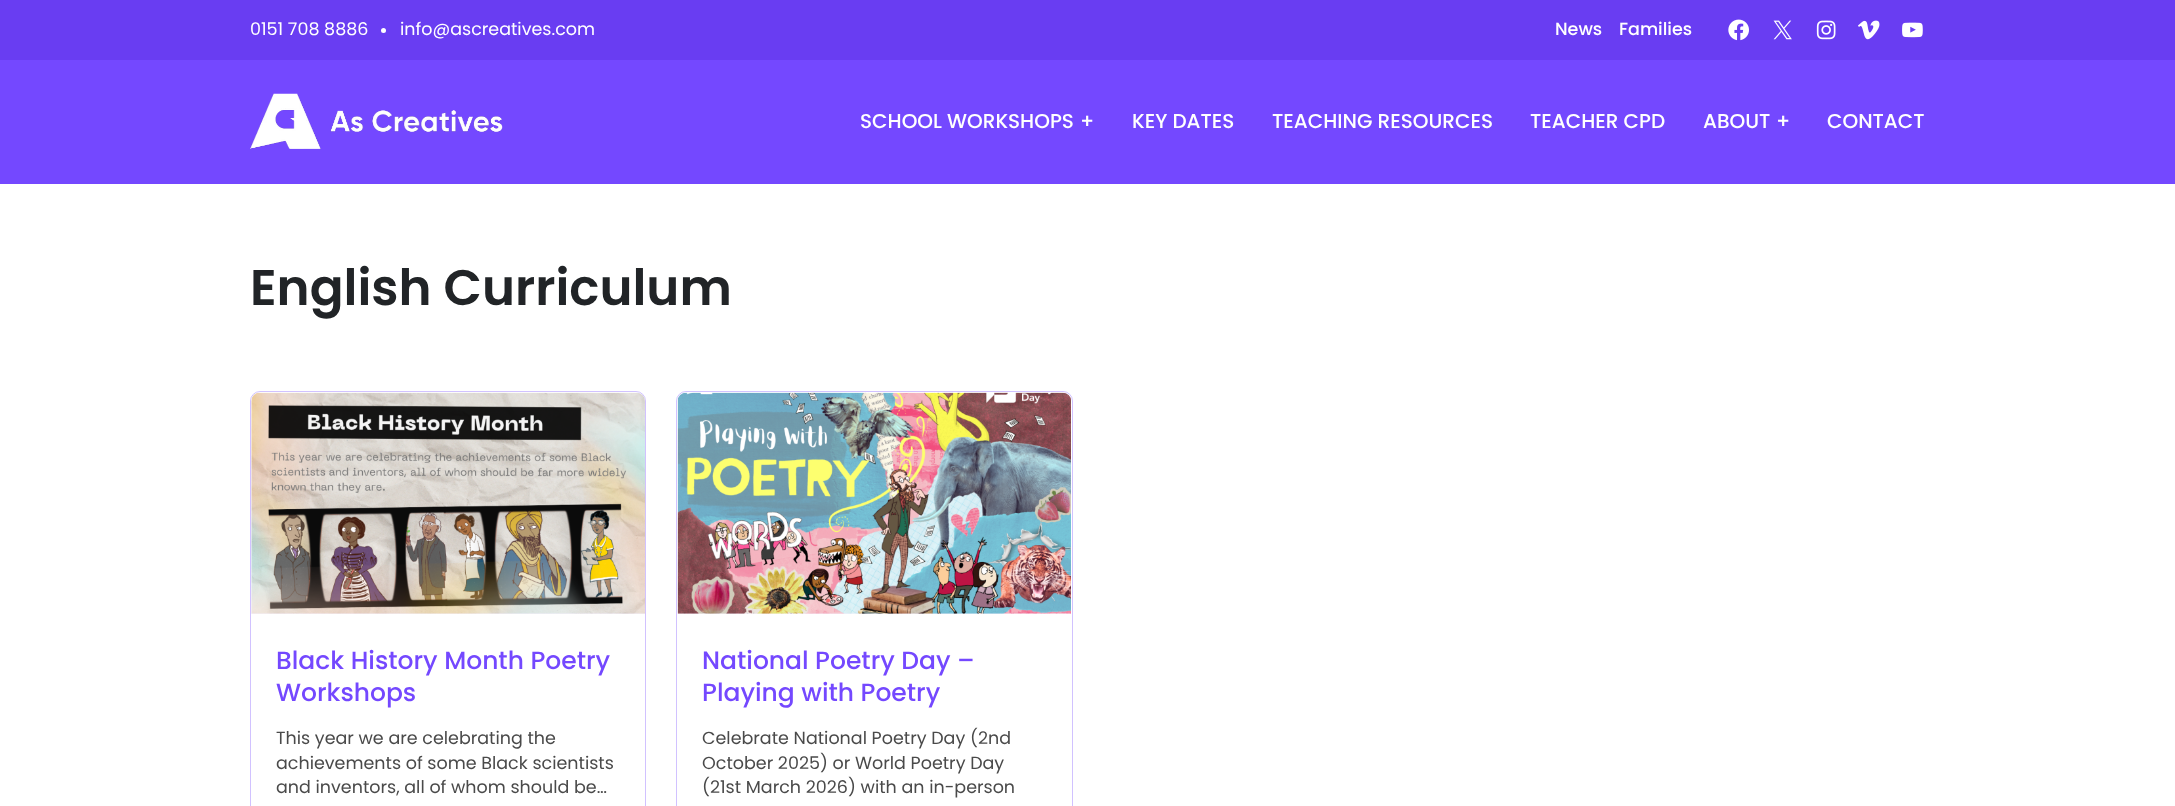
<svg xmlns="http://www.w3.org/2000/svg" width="2175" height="806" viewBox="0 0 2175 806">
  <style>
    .t1 { font: 17.5px Poppins; fill: #fff; }
    .t2 { font: 500 17.5px Poppins; fill: #fff; }
    .t3 { font: 500 20px Poppins; fill: #fff; }
    .t4 { font: 600 50px Poppins; fill: #212427; }
    .t5 { font: 500 25px Poppins; fill: #7448ff; }
    .t6 { font: 17.5px Poppins; fill: #4a4a4a; }
  </style>
  <rect width="100%" height="100%" fill="#fff"/>
  <rect x="0" y="60" width="2175" height="124" fill="#7448ff"/>
  <rect x="0" y="0" width="2175" height="60" fill="#693df2"/>
  <text x="250" y="35" class="t1">0151 708 8886</text>
  <circle cx="383.5" cy="30.5" r="2.5" fill="#fff"/>
  <text x="400" y="35" class="t1">info@ascreatives.com</text>
  <text x="1555" y="35" class="t2">News</text>
  <text x="1619" y="35" class="t2">Families</text>
  <image x="1728" y="19" width="21" height="22" href="images/1.png"/>
  <image x="1773" y="20" width="19" height="20" href="images/2.png"/>
  <image x="1816" y="20" width="20" height="20" href="images/3.png"/>
  <image x="1858" y="20" width="22" height="20" href="images/4.png"/>
  <image x="1902" y="22" width="21" height="16" href="images/5.png"/>
  <image x="250" y="93" width="253" height="56" href="images/6.png"/>
  <text x="860" y="128" class="t3">SCHOOL WORKSHOPS</text>
  <text x="1080" y="128" class="t3">+</text>
  <text x="1132" y="128" class="t3">KEY DATES</text>
  <text x="1272" y="128" class="t3">TEACHING RESOURCES</text>
  <text x="1530" y="128" class="t3">TEACHER CPD</text>
  <text x="1703" y="128" class="t3">ABOUT</text>
  <text x="1776" y="128" class="t3">+</text>
  <text x="1827" y="128" class="t3">CONTACT</text>
  <text x="250" y="305" class="t4">English Curriculum</text>
  <rect x="250.5" y="391.5" width="395" height="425" rx="9.5" fill="none" stroke="#d1c2ff"/>
  <path d="M260 393H636C641 393 645 397 645 402V614H251V402C251 397 255 393 260 393Z" fill="#f5f2ff"/>
  <image x="251" y="392" width="394" height="222" href="images/7.png"/>
  <text x="276" y="669" class="t5">Black History Month Poetry</text>
  <text x="276" y="701" class="t5">Workshops</text>
  <text x="276" y="744" class="t6">This year we are celebrating the</text>
  <text x="276" y="769" class="t6">achievements of some Black scientists</text>
  <text x="276" y="793" class="t6">and inventors, all of whom should be…</text>
  <rect x="676.5" y="391.5" width="396" height="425" rx="9.5" fill="none" stroke="#d1c2ff"/>
  <path d="M687 393H1062C1067 393 1071 397 1071 402V614H678V402C678 397 682 393 687 393Z" fill="#f5f2ff"/>
  <image x="677" y="392" width="394" height="222" href="images/8.png"/>
  <text x="702" y="669" class="t5">National Poetry Day –</text>
  <text x="702" y="701" class="t5">Playing with Poetry</text>
  <text x="702" y="744" class="t6">Celebrate National Poetry Day (2nd</text>
  <text x="702" y="769" class="t6">October 2025) or World Poetry Day</text>
  <text x="702" y="793" class="t6">(21st March 2026) with an in-person</text>
</svg>
